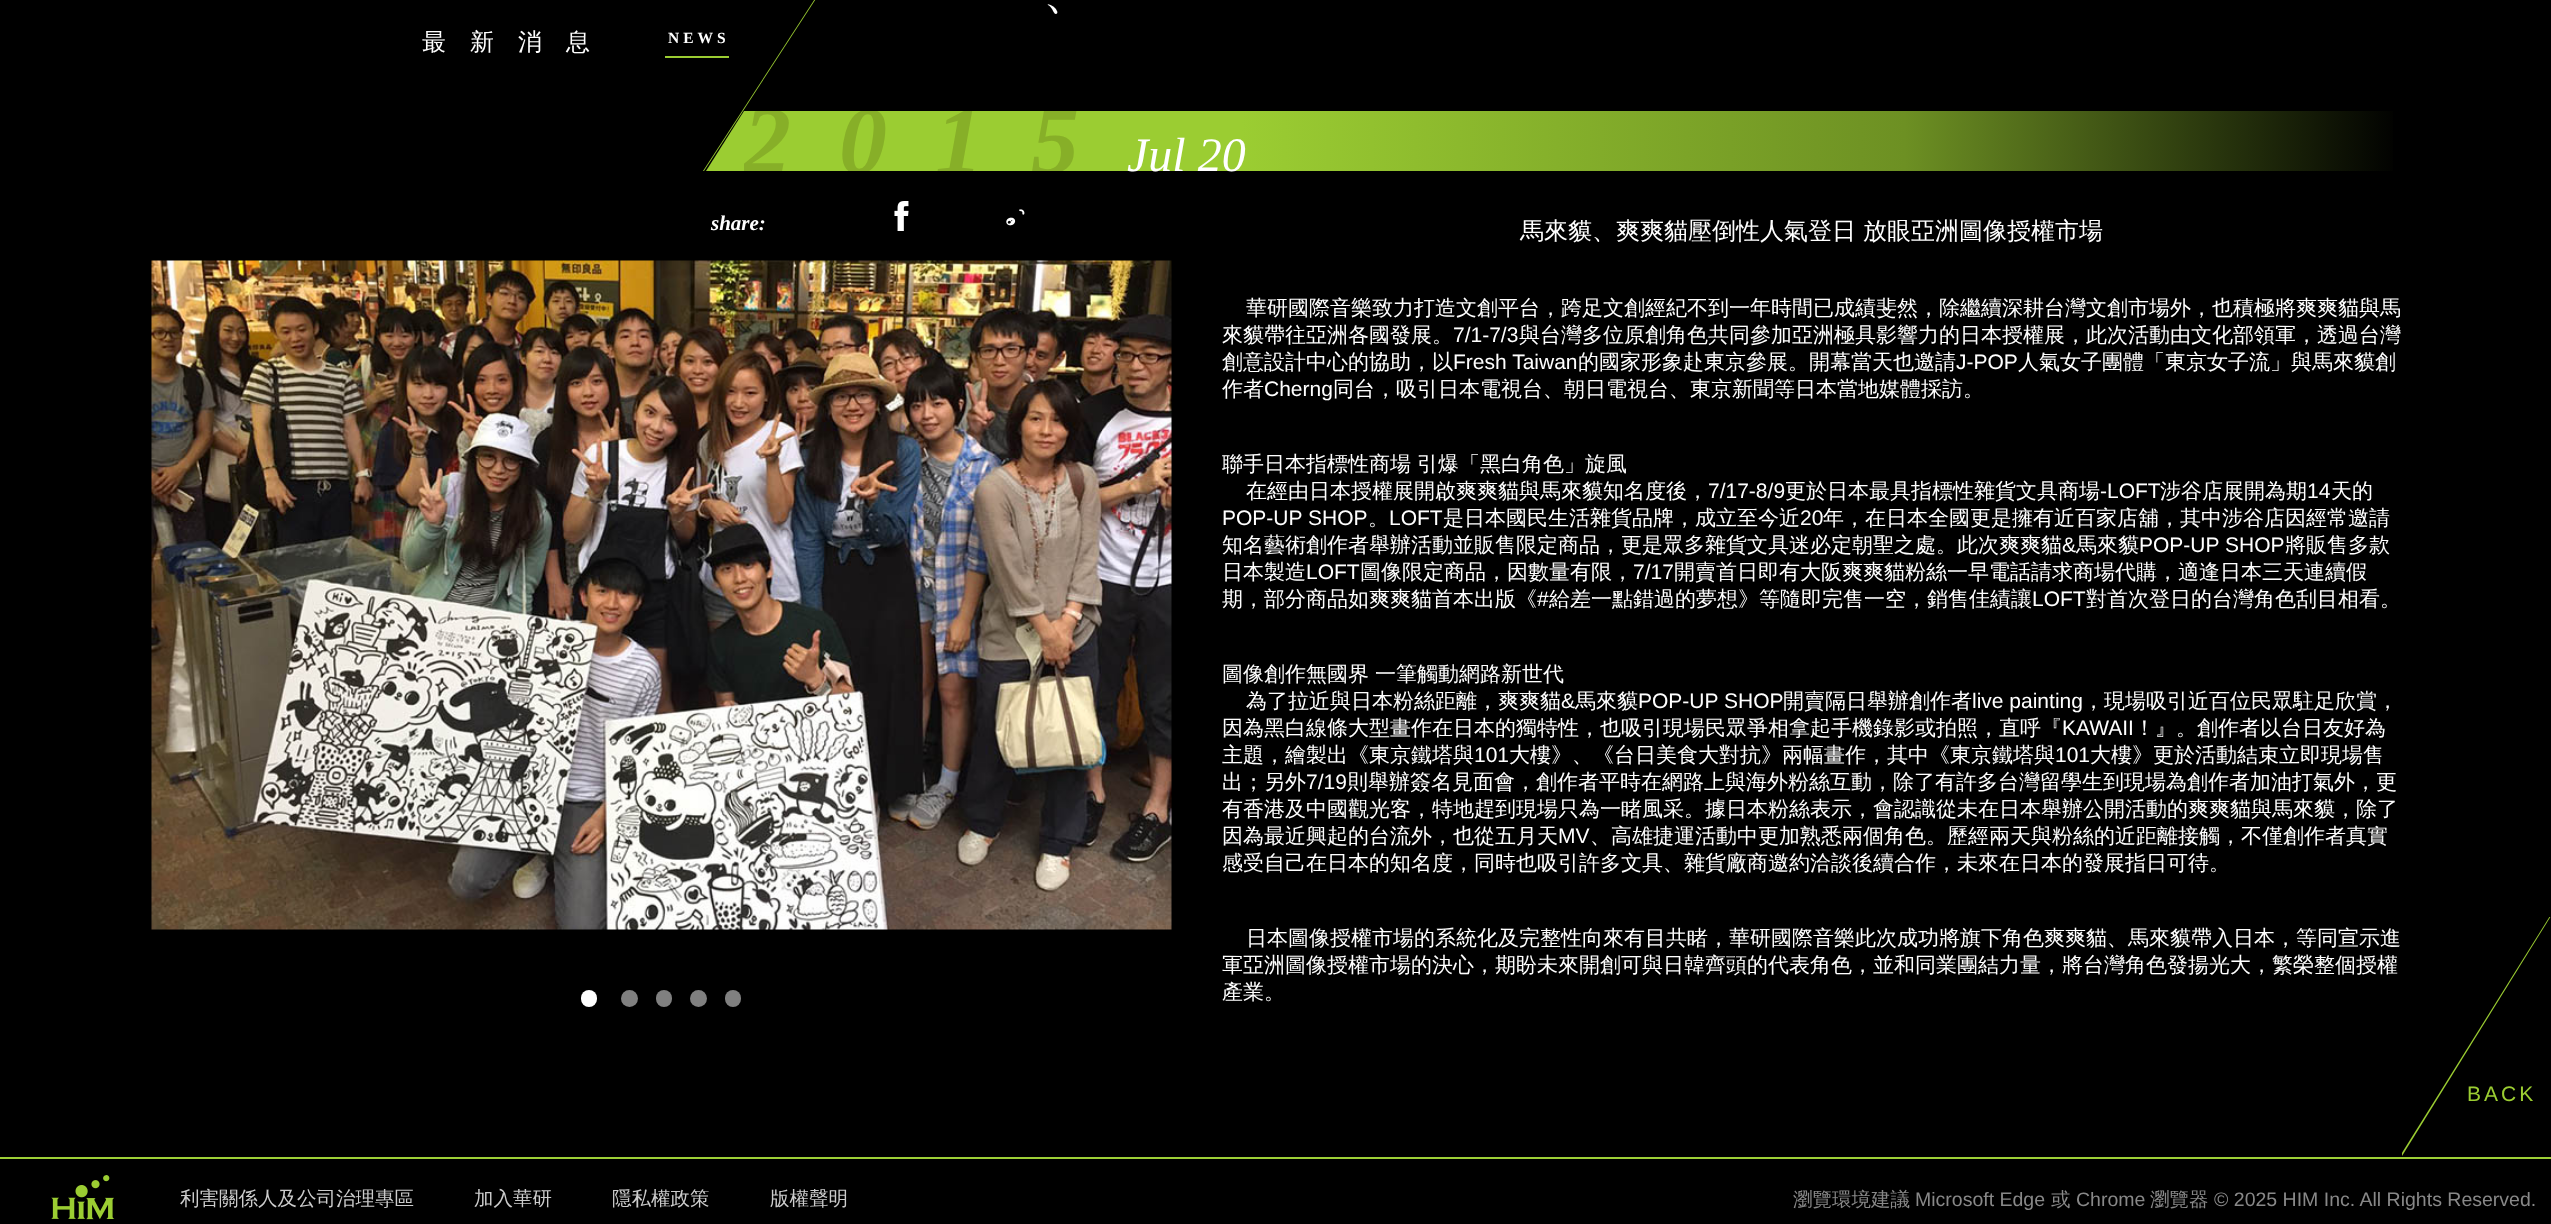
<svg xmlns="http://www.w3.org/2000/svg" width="2551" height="1224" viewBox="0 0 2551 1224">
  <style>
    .t1 { font: 500 48px WenQuanYi Zen Hei; letter-spacing: 4px; fill: #fff; }
    .t2 { font: 500 24px WenQuanYi Zen Hei; letter-spacing: 24px; fill: #fff; }
    .t3 { font: bold 15.5px Liberation Serif; letter-spacing: 4px; fill: #fff; }
    .t4 { font: italic bold 96px Liberation Serif; letter-spacing: 48px; fill: #87af28; }
    .t5 { font: italic 48px Liberation Serif; fill: #fff; }
    .t6 { font: italic bold 21px Liberation Serif; fill: #fff; }
    .t7 { font: 500 24px WenQuanYi Zen Hei; fill: #fff; }
    .t8 { font: 500 21px WenQuanYi Zen Hei; fill: #fff; }
    .t9 { font: 21px Liberation Sans; fill: #fff; }
    .t10 { font: 21px Liberation Sans; letter-spacing: 3px; fill: #9bcd32; }
    .t11 { font: 500 19.5px WenQuanYi Zen Hei; fill: #ccc; }
    .t12 { font: 500 19.5px WenQuanYi Zen Hei; fill: #888; }
    .t13 { font: 19.5px Liberation Sans; fill: #888; }
  </style>
  <defs>
    <linearGradient id="g1" gradientUnits="userSpaceOnUse" x1="744" y1="141" x2="2402" y2="141"><stop offset="0" stop-color="#9bcd32"/><stop offset="0.3" stop-color="#9bcd32"/><stop offset="0.7" stop-color="#6d9023"/><stop offset="1" stop-color="#000"/></linearGradient>
    <clipPath id="clip1"><rect x="744" y="111" width="384" height="60"/></clipPath>
    <clipPath id="clip2"><rect x="2402" y="917" width="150" height="240"/></clipPath>
  </defs>
  <rect width="100%" height="100%" fill="#000"/>
  <text x="1043" y="8" class="t1">、</text>
  <text x="422" y="50" class="t2">最新消息</text>
  <path d="M859-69H860L704 171H703Z" fill="#9bcd32"/>
  <text x="668" y="43" class="t3">NEWS</text>
  <rect x="665" y="56" width="64" height="2" fill="#9bcd32"/>
  <rect x="744" y="111" width="1649" height="60" fill="url(#g1)"/>
  <path d="M744 171H706L744 111Z" fill="#9bcd32"/>
  <g clip-path="url(#clip1)">
    <text x="743" y="173" class="t4">2015</text>
  </g>
  <text x="1127" y="171" class="t5">Jul 20</text>
  <text x="711" y="230" class="t6">share:</text>
  <image x="894" y="201" width="15" height="30" href="images/1.png"/>
  <image x="1006" y="209" width="19" height="17" href="images/2.png"/>
  <text x="1520" y="239" class="t7">馬來貘、爽爽貓壓倒性人氣登日</text>
  <text x="1863" y="239" class="t7">放眼亞洲圖像授權市場</text>
  <text x="1246" y="315" class="t8">華研國際音樂致力打造文創平台，跨足文創經紀不到一年時間已成績斐然，除繼續深耕台灣文創市場外，也積極將爽爽貓與馬</text>
  <text x="1222" y="342" class="t8">來貘帶往亞洲各國發展。</text>
  <text x="1453" y="342" class="t9">7/1-7/3</text>
  <text x="1519" y="342" class="t8">與台灣多位原創角色共同參加亞洲極具影響力的日本授權展，此次活動由文化部領軍，透過台灣</text>
  <text x="1222" y="369" class="t8">創意設計中心的協助，以</text>
  <text x="1453" y="369" class="t9">Fresh Taiwan</text>
  <text x="1578" y="369" class="t8">的國家形象赴東京參展。開幕當天也邀請</text>
  <text x="1956" y="369" class="t9">J-POP</text>
  <text x="2018" y="369" class="t8">人氣女子團體「東京女子流」與馬來貘創</text>
  <text x="1222" y="396" class="t8">作者</text>
  <text x="1264" y="396" class="t9">Cherng</text>
  <text x="1333" y="396" class="t8">同台，吸引日本電視台、朝日電視台、東京新聞等日本當地媒體採訪。</text>
  <text x="1222" y="471" class="t8">聯手日本指標性商場</text>
  <text x="1417" y="471" class="t8">引爆「黑白角色」旋風</text>
  <text x="1246" y="498" class="t8">在經由日本授權展開啟爽爽貓與馬來貘知名度後，</text>
  <text x="1708" y="498" class="t9">7/17-8/9</text>
  <text x="1785" y="498" class="t8">更於日本最具指標性雜貨文具商場</text>
  <text x="2100" y="498" class="t9">-LOFT</text>
  <text x="2160" y="498" class="t8">涉谷店展開為期</text>
  <text x="2307" y="498" class="t9">14</text>
  <text x="2331" y="498" class="t8">天的</text>
  <text x="1222" y="525" class="t9">POP-UP SHOP</text>
  <text x="1368" y="525" class="t8">。</text>
  <text x="1389" y="525" class="t9">LOFT</text>
  <text x="1443" y="525" class="t8">是日本國民生活雜貨品牌，成立至今近</text>
  <text x="1800" y="525" class="t9">20</text>
  <text x="1823" y="525" class="t8">年，在日本全國更是擁有近百家店舖，其中涉谷店因經常邀請</text>
  <text x="1222" y="552" class="t8">知名藝術創作者舉辦活動並販售限定商品，更是眾多雜貨文具迷必定朝聖之處。此次爽爽貓</text>
  <text x="2062" y="552" class="t9">&amp;</text>
  <text x="2076" y="552" class="t8">馬來貘</text>
  <text x="2139" y="552" class="t9">POP-UP SHOP</text>
  <text x="2285" y="552" class="t8">將販售多款</text>
  <text x="1222" y="579" class="t8">日本製造</text>
  <text x="1306" y="579" class="t9">LOFT</text>
  <text x="1360" y="579" class="t8">圖像限定商品，因數量有限，</text>
  <text x="1633" y="579" class="t9">7/17</text>
  <text x="1674" y="579" class="t8">開賣首日即有大阪爽爽貓粉絲一早電話請求商場代購，適逢日本三天連續假</text>
  <text x="1222" y="606" class="t8">期，部分商品如爽爽貓首本出版《</text>
  <text x="1537" y="606" class="t9">#</text>
  <text x="1549" y="606" class="t8">給差一點錯過的夢想》等隨即完售一空，銷售佳績讓</text>
  <text x="2032" y="606" class="t9">LOFT</text>
  <text x="2086" y="606" class="t8">對首次登日的台灣角色刮目相看。</text>
  <text x="1222" y="681" class="t8">圖像創作無國界</text>
  <text x="1375" y="681" class="t8">一筆觸動網路新世代</text>
  <text x="1246" y="708" class="t8">為了拉近與日本粉絲距離，爽爽貓</text>
  <text x="1561" y="708" class="t9">&amp;</text>
  <text x="1575" y="708" class="t8">馬來貘</text>
  <text x="1638" y="708" class="t9">POP-UP SHOP</text>
  <text x="1783" y="708" class="t8">開賣隔日舉辦創作者</text>
  <text x="1972" y="708" class="t9">live painting</text>
  <text x="2083" y="708" class="t8">，現場吸引近百位民眾駐足欣賞，</text>
  <text x="1222" y="735" class="t8">因為黑白線條大型畫作在日本的獨特性，也吸引現場民眾爭相拿起手機錄影或拍照，直呼『</text>
  <text x="2062" y="735" class="t9">KAWAII</text>
  <text x="2134" y="735" class="t8">！』。創作者以台日友好為</text>
  <text x="1222" y="762" class="t8">主題，繪製出《東京鐵塔與</text>
  <text x="1474" y="762" class="t9">101</text>
  <text x="1509" y="762" class="t8">大樓》、《台日美食大對抗》兩幅畫作，其中《東京鐵塔與</text>
  <text x="2055" y="762" class="t9">101</text>
  <text x="2090" y="762" class="t8">大樓》更於活動結束立即現場售</text>
  <text x="1222" y="789" class="t8">出；另外</text>
  <text x="1306" y="789" class="t9">7/19</text>
  <text x="1347" y="789" class="t8">則舉辦簽名見面會，創作者平時在網路上與海外粉絲互動，除了有許多台灣留學生到現場為創作者加油打氣外，更</text>
  <text x="1222" y="816" class="t8">有香港及中國觀光客，特地趕到現場只為一睹風采。據日本粉絲表示，會認識從未在日本舉辦公開活動的爽爽貓與馬來貘，除了</text>
  <text x="1222" y="843" class="t8">因為最近興起的台流外，也從五月天</text>
  <text x="1558" y="843" class="t9">MV</text>
  <text x="1590" y="843" class="t8">、高雄捷運活動中更加熟悉兩個角色。歷經兩天與粉絲的近距離接觸，不僅創作者真實</text>
  <text x="1222" y="870" class="t8">感受自己在日本的知名度，同時也吸引許多文具、雜貨廠商邀約洽談後續合作，未來在日本的發展指日可待。</text>
  <text x="1246" y="945" class="t8">日本圖像授權市場的系統化及完整性向來有目共睹，華研國際音樂此次成功將旗下角色爽爽貓、馬來貘帶入日本，等同宣示進</text>
  <text x="1222" y="972" class="t8">軍亞洲圖像授權市場的決心，期盼未來開創可與日韓齊頭的代表角色，並和同業團結力量，將台灣角色發揚光大，繁榮整個授權</text>
  <text x="1222" y="999" class="t8">產業。</text>
  <image x="151" y="260" width="1021" height="670" href="images/3.png"/>
  <rect x="581" y="990" width="16" height="17" rx="8" fill="#fff"/>
  <circle cx="629.5" cy="998.5" r="8.5" fill="#808080"/>
  <rect x="656" y="990" width="16" height="17" rx="8" fill="#808080"/>
  <circle cx="698.5" cy="998.5" r="8.5" fill="#808080"/>
  <rect x="725" y="990" width="16" height="17" rx="8" fill="#808080"/>
  <g clip-path="url(#clip2)">
    <path d="M2550 916H2551L2402 1156H2400Z" fill="#9bcd32"/>
  </g>
  <text x="2467" y="1101" class="t10">BACK</text>
  <rect x="0" y="1157" width="2551" height="2" fill="#9ccf36"/>
  <image x="51" y="1175" width="64" height="45" href="images/4.png"/>
  <text x="180" y="1205" class="t11">利害關係人及公司治理專區</text>
  <text x="474" y="1205" class="t11">加入華研</text>
  <text x="612" y="1205" class="t11">隱私權政策</text>
  <text x="770" y="1205" class="t11">版權聲明</text>
  <text x="1793" y="1206" class="t12">瀏覽環境建議</text>
  <text x="1915" y="1206" class="t13">Microsoft Edge</text>
  <text x="2051" y="1206" class="t12">或</text>
  <text x="2076" y="1206" class="t13">Chrome</text>
  <text x="2150" y="1206" class="t12">瀏覽器</text>
  <text x="2214" y="1206" class="t13">© 2025 HIM Inc. All Rights Reserved.</text>
</svg>
